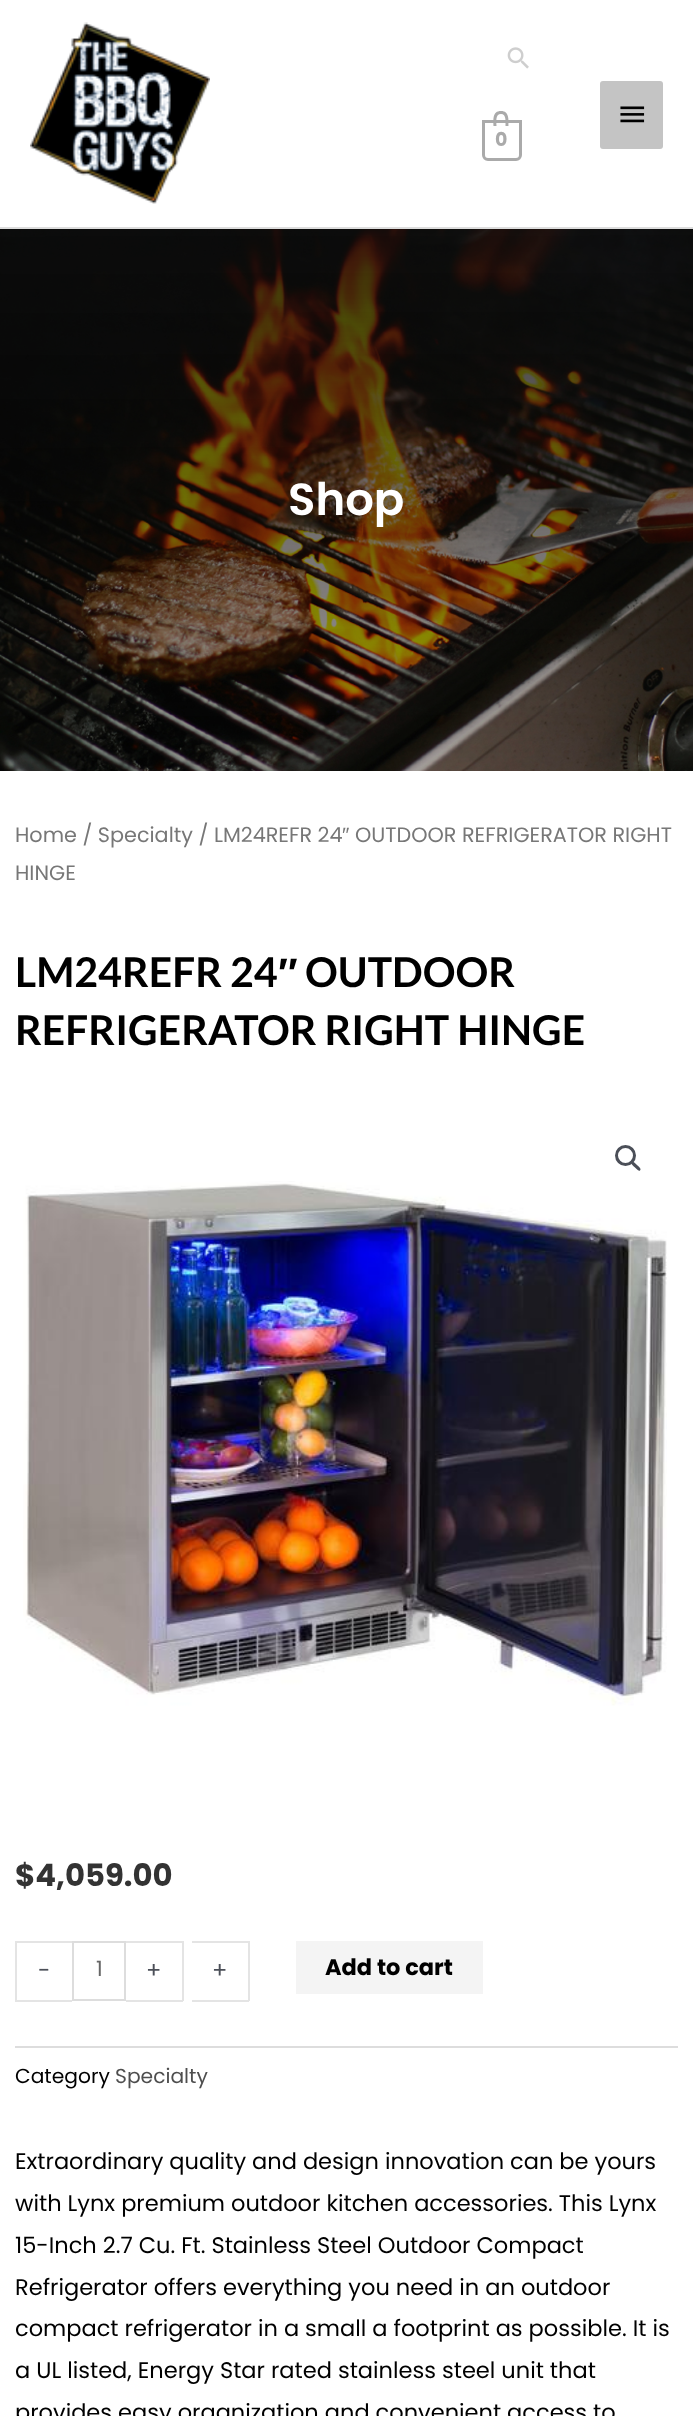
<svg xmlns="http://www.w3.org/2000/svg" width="693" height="2416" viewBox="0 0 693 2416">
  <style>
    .t1 { font: bold 19px Poppins; fill: #aaa; }
    .t2 { font: 600 45px Poppins; fill: #fff; }
    .t3 { font: 20.75px Poppins; fill: #777; }
    .t4 { font: 20.75px Liberation Sans; fill: #777; }
    .t5 { font: bold 41px Lato; fill: #000; }
    .t6 { font: bold 41px Liberation Sans; fill: #000; }
    .t7 { font: bold 30.75px Poppins; fill: #333; }
    .t8 { font: 22.5px Poppins; fill: #4b4f58; }
    .t9 { font: 21px Poppins; fill: #666; }
    .t10 { font: bold 22.5px Poppins; fill: #000; }
    .t11 { font: 20.25px Poppins; fill: #000; }
    .t12 { font: 20.25px Poppins; fill: #4e4e4e; }
    .t13 { font: 22.5px Poppins; fill: #000; }
  </style>
  <rect width="100%" height="100%" fill="#fff"/>
  <rect x="0" y="227" width="693" height="2" fill="#ddd"/>
  <image x="30" y="22" width="180" height="182" href="images/1.png"/>
  <image x="507" y="47" width="22" height="22" href="images/2.png"/>
  <path d="M483.5 121.5H520.5V155C520.5 157.5 518.5 159.5 516 159.5H488C485.5 159.5 483.5 157.5 483.5 155Z" fill="none" stroke="#aaa" stroke-width="3"/>
  <path d="M501 111C509.5 111 508.5 120 508.5 126H493.5C493.5 120 492 111 501 111ZM501 114C506.5 114 505.5 122 505.5 126H496.5C496.5 122 495 114 501 114Z" fill="#aaa" fill-rule="evenodd"/>
  <text x="495" y="146" class="t1">0</text>
  <rect x="600" y="81" width="63" height="68" rx="3" fill="#c4c4c4"/>
  <image x="620" y="106" width="25" height="17" href="images/3.png"/>
  <image x="0" y="229" width="693" height="542" href="images/4.png"/>
  <text x="288" y="515" class="t2">Shop</text>
  <text x="15" y="842" class="t3">Home / Specialty / LM24REFR 24</text>
  <text x="342" y="842" class="t4">″</text>
  <text x="355" y="842" class="t3">OUTDOOR REFRIGERATOR RIGHT</text>
  <text x="15" y="880" class="t3">HINGE</text>
  <text x="15" y="987" class="t5">LM24REFR 24</text>
  <text x="278" y="987" class="t6">″</text>
  <text x="305" y="987" class="t5">OUTDOOR</text>
  <text x="15" y="1045" class="t5">REFRIGERATOR RIGHT HINGE</text>
  <circle cx="625.5" cy="1155.5" r="9" fill="none" stroke="#4b4f58" stroke-width="3"/>
  <path d="M632 1162C633.5 1160.5 636 1164 637 1165C638 1166 642 1168.5 640 1170.5C638.5 1172 636 1168 635 1167.5C634 1166.5 630 1163.5 632 1162Z" fill="#4b4f58"/>
  <image x="23" y="1181" width="644" height="525" href="images/5.png"/>
  <text x="15" y="1886" class="t7">$4,059.00</text>
  <rect x="15" y="1941" width="57" height="2" fill="#e4e4e4"/>
  <rect x="15" y="2000" width="57" height="2" fill="#e4e4e4"/>
  <rect x="15" y="1941" width="2" height="60" fill="#e4e4e4"/>
  <text x="38" y="1978" class="t8">-</text>
  <rect x="73" y="1942" width="52" height="58" fill="none" stroke="#ddd" stroke-width="2"/>
  <text x="96" y="1976" class="t9">1</text>
  <rect x="126" y="1941" width="57" height="2" fill="#e4e4e4"/>
  <rect x="182" y="1941" width="2" height="60" fill="#e4e4e4"/>
  <rect x="126" y="2000" width="57" height="2" fill="#e4e4e4"/>
  <text x="146" y="1978" class="t8">+</text>
  <rect x="192" y="1941" width="57" height="2" fill="#e4e4e4"/>
  <rect x="248" y="1941" width="2" height="60" fill="#e4e4e4"/>
  <rect x="192" y="2000" width="57" height="2" fill="#e4e4e4"/>
  <text x="212" y="1978" class="t8">+</text>
  <rect x="296" y="1941" width="187" height="53" fill="#f4f4f4"/>
  <text x="325" y="1975" class="t10">Add to cart</text>
  <rect x="15" y="2046" width="663" height="2" fill="#ddd"/>
  <text x="15" y="2083" class="t11">Category</text>
  <text x="115" y="2083" class="t12">Specialty</text>
  <text x="15" y="2169" class="t13">Extraordinary quality and design innovation can be yours</text>
  <text x="15" y="2211" class="t13">with Lynx premium outdoor kitchen accessories. This Lynx</text>
  <text x="15" y="2253" class="t13">15-Inch 2.7 Cu. Ft. Stainless Steel Outdoor Compact</text>
  <text x="15" y="2295" class="t13">Refrigerator offers everything you need in an outdoor</text>
  <text x="15" y="2336" class="t13">compact refrigerator in a small a footprint as possible. It is</text>
  <text x="15" y="2378" class="t13">a UL listed, Energy Star rated stainless steel unit that</text>
  <text x="15" y="2420" class="t13">provides easy organization and convenient access to</text>
</svg>
